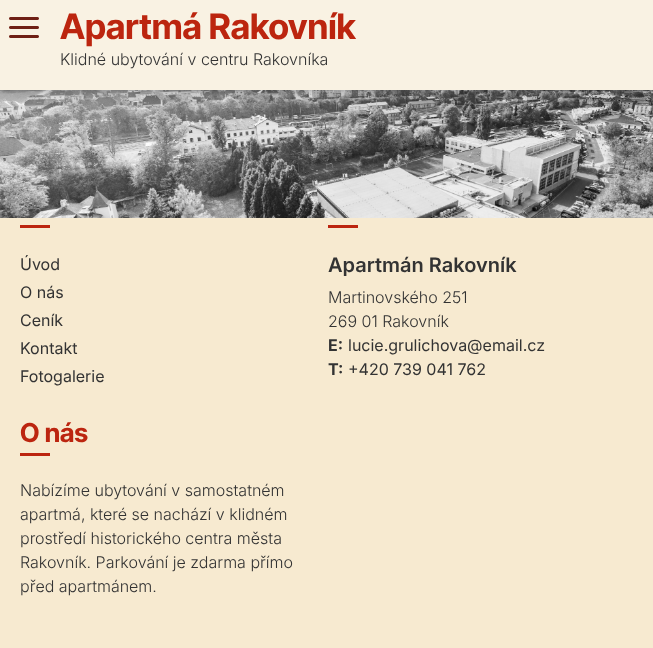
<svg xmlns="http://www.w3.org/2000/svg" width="653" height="648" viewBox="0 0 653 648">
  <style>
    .t1 { font: bold 35px Inter Tight; fill: #bc250f; }
    .t2 { font: 300 16px Inter; fill: #333; }
    .t3 { font: 16px Inter; fill: #333; }
    .t4 { font: 600 20px Inter; fill: #333; }
    .t5 { font: bold 16px Inter; fill: #333; }
    .t6 { font: bold 26px Inter Tight; fill: #bc250f; }
  </style>
  <rect width="100%" height="100%" fill="#f7ead0"/>
  <image x="0" y="90" width="653" height="128" href="images/2.png"/>
  <rect x="0" y="3" width="653" height="90" fill="#00000033" filter="blur(5px)"/>
  <rect x="0" y="0" width="653" height="90" fill="#f9f2e3"/>
  <image x="9" y="17" width="30" height="21" href="images/1.png"/>
  <text x="60" y="39" class="t1">Apartmá Rakovník</text>
  <text x="60" y="65" class="t2">Klidné ubytování v centru Rakovníka</text>
  <rect x="20" y="225" width="30" height="3" fill="#bc250f"/>
  <text x="20" y="270" class="t3">Úvod</text>
  <text x="20" y="298" class="t3">O nás</text>
  <text x="20" y="326" class="t3">Ceník</text>
  <text x="20" y="354" class="t3">Kontakt</text>
  <text x="20" y="382" class="t3">Fotogalerie</text>
  <rect x="328" y="225" width="30" height="3" fill="#bc250f"/>
  <text x="328" y="272" class="t4">Apartmán Rakovník</text>
  <text x="328" y="303" class="t2">Martinovského 251</text>
  <text x="328" y="327" class="t2">269 01 Rakovník</text>
  <text x="328" y="351" class="t5">E:</text>
  <text x="348" y="351" class="t3">lucie.grulichova@email.cz</text>
  <text x="328" y="375" class="t5">T:</text>
  <text x="348" y="375" class="t3">+420 739 041 762</text>
  <text x="20" y="442" class="t6">O nás</text>
  <rect x="20" y="453" width="30" height="3" fill="#bc250f"/>
  <text x="20" y="496" class="t2">Nabízíme ubytování v samostatném</text>
  <text x="20" y="520" class="t2">apartmá, které se nachází v klidném</text>
  <text x="20" y="544" class="t2">prostředí historického centra města</text>
  <text x="20" y="568" class="t2">Rakovník. Parkování je zdarma přímo</text>
  <text x="20" y="592" class="t2">před apartmánem.</text>
</svg>
